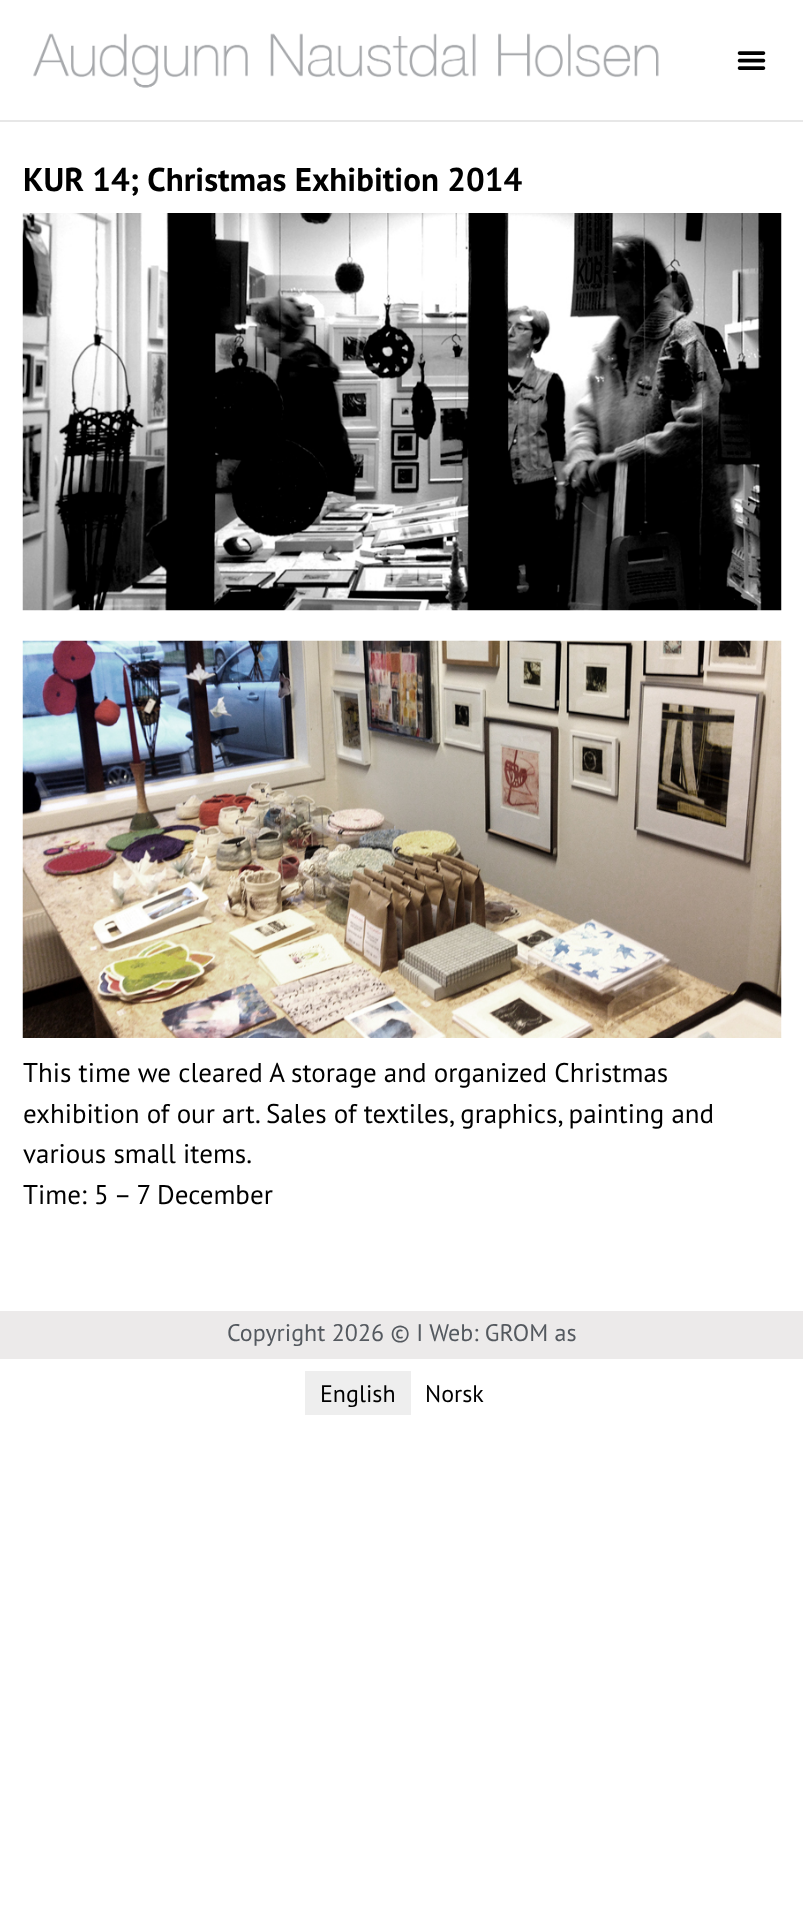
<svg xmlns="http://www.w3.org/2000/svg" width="803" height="1909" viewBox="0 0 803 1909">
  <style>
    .t1 { font: bold 33px PT Sans; fill: #000; }
    .t2 { font: 27px PT Sans; fill: #000; }
    .t3 { font: 24px PT Sans; fill: #54595f; }
    .t4 { font: 24px PT Sans; fill: #000; }
  </style>
  <rect width="100%" height="100%" fill="#fff"/>
  <rect x="0" y="120" width="803" height="2" fill="#e7e7e7"/>
  <image x="33" y="33" width="626" height="55" href="images/1.png"/>
  <image x="737" y="51" width="29" height="19" href="images/2.png"/>
  <text x="23" y="191" class="t1">KUR 14; Christmas Exhibition 2014</text>
  <image x="22" y="213" width="760" height="398" href="images/3.png"/>
  <image x="22" y="640" width="760" height="398" href="images/4.png"/>
  <text x="23" y="1082" class="t2">This time we cleared A storage and organized Christmas</text>
  <text x="23" y="1123" class="t2">exhibition of our art. Sales of textiles, graphics, painting and</text>
  <text x="23" y="1163" class="t2">various small items.</text>
  <text x="23" y="1204" class="t2">Time: 5 – 7 December</text>
  <rect x="0" y="1311" width="803" height="48" fill="#eceaea"/>
  <text x="227" y="1341" class="t3">Copyright 2026 © I Web: GROM as</text>
  <rect x="305" y="1371" width="106" height="44" fill="#eee"/>
  <text x="320" y="1402" class="t4">English</text>
  <text x="425" y="1402" class="t4">Norsk</text>
</svg>
